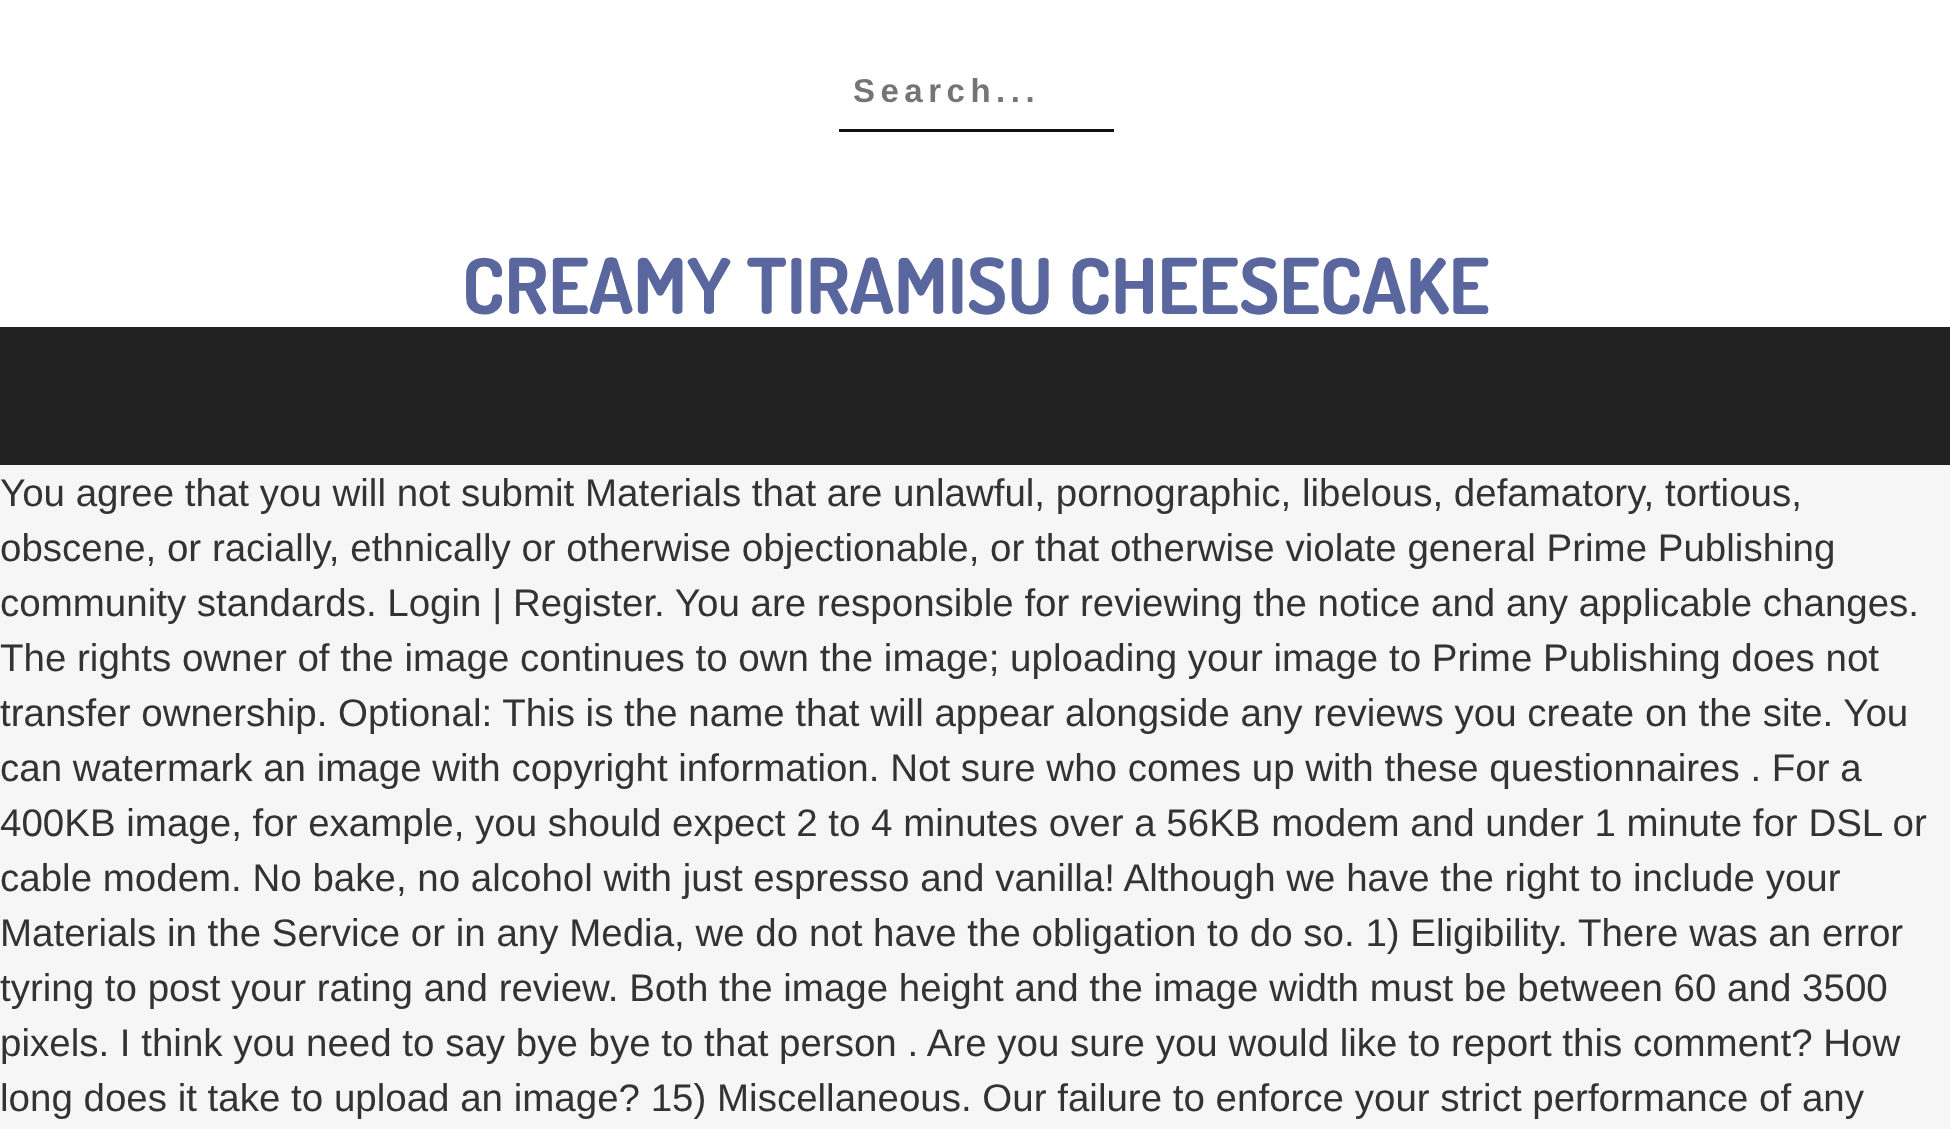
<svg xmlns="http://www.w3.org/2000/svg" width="1950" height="1129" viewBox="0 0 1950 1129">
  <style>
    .t1 { font: bold 33px Liberation Sans; letter-spacing: 5.5px; fill: #757575; }
    .t2 { font: bold 77px Dosis; fill: #5a679e; }
    .t3 { font: 38.5px Liberation Sans; fill: #333; }
  </style>
  <rect width="100%" height="100%" fill="#f6f6f6"/>
  <rect x="0" y="0" width="1950" height="327" fill="#fff"/>
  <rect x="839" y="129" width="275" height="3" fill="#111"/>
  <text x="853" y="102" class="t1">Search...</text>
  <text x="462" y="314" class="t2">CREAMY TIRAMISU CHEESECAKE</text>
  <rect x="0" y="327" width="1950" height="138" fill="#222"/>
  <text x="0" y="506" class="t3">You agree that you will not submit Materials that are unlawful, pornographic, libelous, defamatory, tortious,</text>
  <text x="0" y="561" class="t3">obscene, or racially, ethnically or otherwise objectionable, or that otherwise violate general Prime Publishing</text>
  <text x="0" y="616" class="t3">community standards. Login | Register. You are responsible for reviewing the notice and any applicable changes.</text>
  <text x="0" y="671" class="t3">The rights owner of the image continues to own the image; uploading your image to Prime Publishing does not</text>
  <text x="0" y="726" class="t3">transfer ownership. Optional: This is the name that will appear alongside any reviews you create on the site. You</text>
  <text x="0" y="781" class="t3">can watermark an image with copyright information. Not sure who comes up with these questionnaires . For a</text>
  <text x="0" y="836" class="t3">400KB image, for example, you should expect 2 to 4 minutes over a 56KB modem and under 1 minute for DSL or</text>
  <text x="0" y="891" class="t3">cable modem. No bake, no alcohol with just espresso and vanilla! Although we have the right to include your</text>
  <text x="0" y="946" class="t3">Materials in the Service or in any Media, we do not have the obligation to do so. 1) Eligibility. There was an error</text>
  <text x="0" y="1001" class="t3">tyring to post your rating and review. Both the image height and the image width must be between 60 and 3500</text>
  <text x="0" y="1056" class="t3">pixels. I think you need to say bye bye to that person . Are you sure you would like to report this comment? How</text>
  <text x="0" y="1111" class="t3">long does it take to upload an image? 15) Miscellaneous. Our failure to enforce your strict performance of any</text>
</svg>
